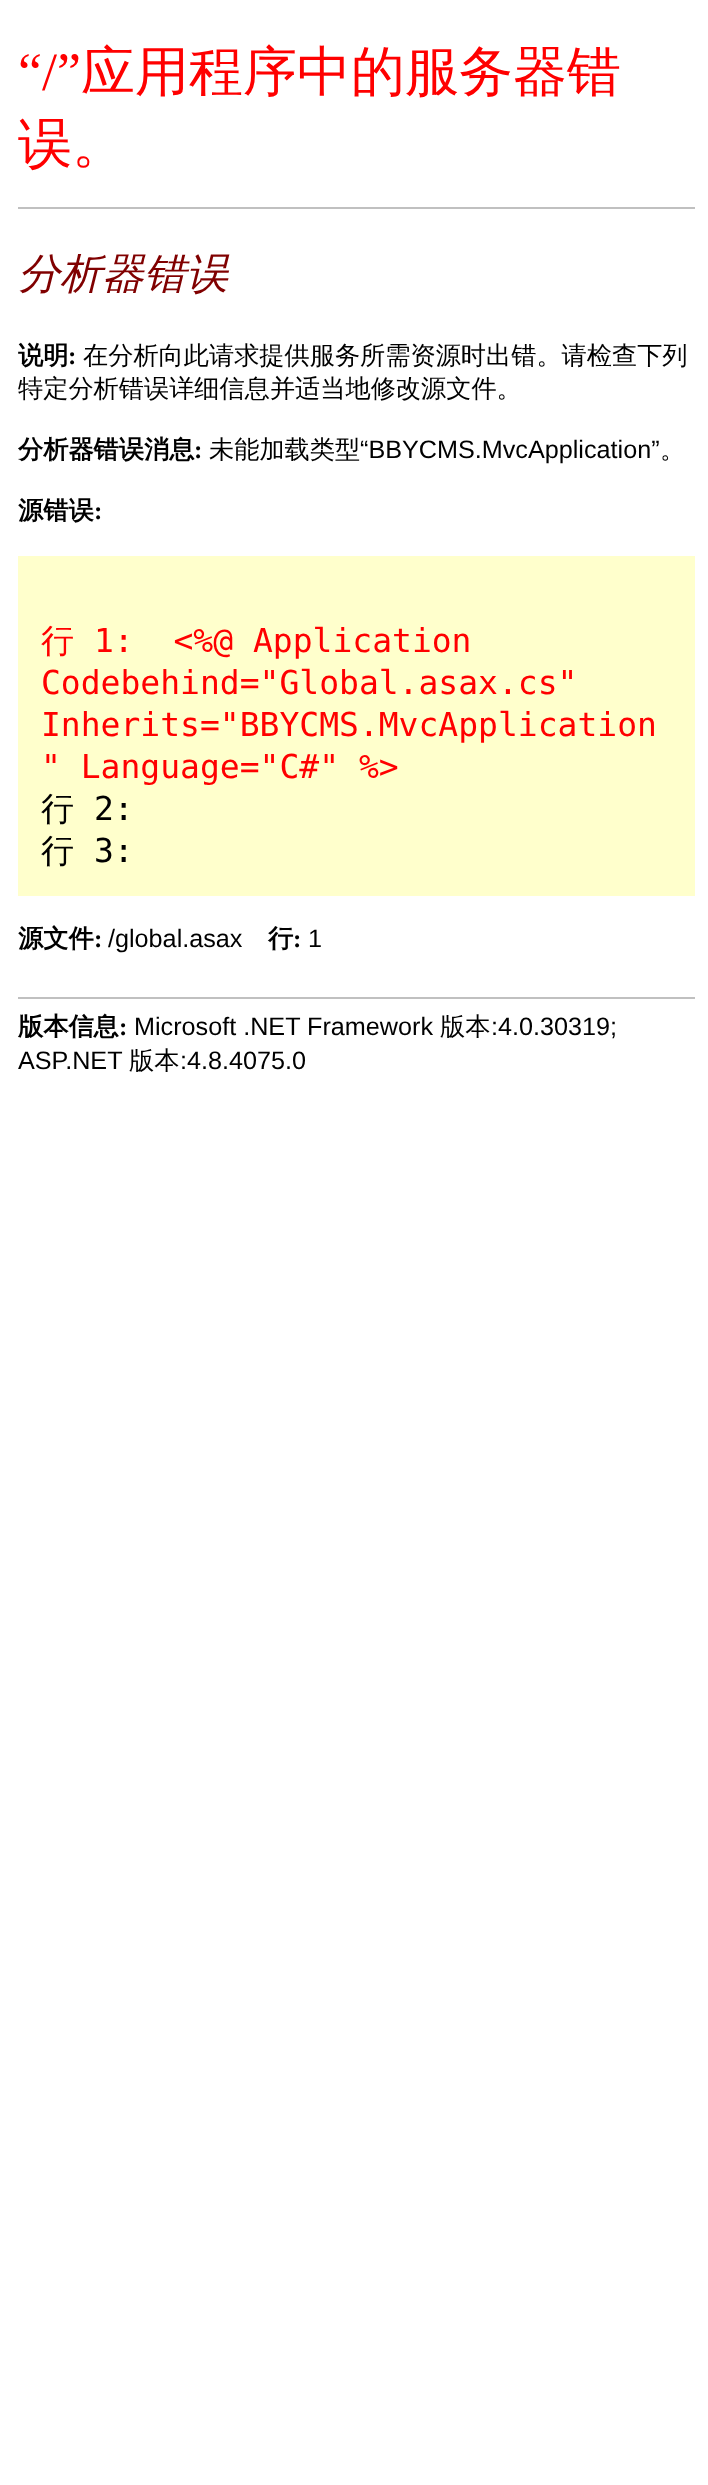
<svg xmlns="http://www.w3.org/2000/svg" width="708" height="2485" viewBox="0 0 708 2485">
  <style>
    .t1 { font: 54px Liberation Serif; fill: #f00; }
    .t2 { font: 500 54px WenQuanYi Zen Hei; fill: #f00; }
    .t3 { font: italic 500 42px WenQuanYi Zen Hei; fill: #800000; }
    .t4 { font: bold 25.2px WenQuanYi Zen Hei; fill: #000; }
    .t5 { font: bold 25.2px Liberation Serif; fill: #000; }
    .t6 { font: 500 25.2px WenQuanYi Zen Hei; fill: #000; }
    .t7 { font: 25.2px Liberation Sans; fill: #000; }
    .t8 { font: 500 33px WenQuanYi Zen Hei; fill: #f00; }
    .t9 { font: 33px DejaVu Sans Mono; fill: #f00; }
    .t10 { font: 500 33px WenQuanYi Zen Hei; fill: #000; }
    .t11 { font: 33px DejaVu Sans Mono; fill: #000; }
  </style>
  <rect width="100%" height="100%" fill="#fff"/>
  <text x="18" y="90" class="t1">“/”</text>
  <text x="81" y="90" class="t2">应用程序中的服务器错</text>
  <text x="18" y="162" class="t2">误。</text>
  <rect x="18" y="207" width="677" height="2" fill="#c0c0c0"/>
  <text x="18" y="288" class="t3">分析器错误</text>
  <text x="18" y="364" class="t4">说明</text>
  <text x="68" y="364" class="t5">:</text>
  <text x="83" y="364" class="t6">在分析向此请求提供服务所需资源时出错。请检查下列</text>
  <text x="18" y="397" class="t6">特定分析错误详细信息并适当地修改源文件。</text>
  <text x="18" y="458" class="t4">分析器错误消息</text>
  <text x="194" y="458" class="t5">:</text>
  <text x="209" y="458" class="t6">未能加载类型</text>
  <text x="360" y="458" class="t7">“BBYCMS.MvcApplication”</text>
  <text x="660" y="458" class="t6">。</text>
  <text x="18" y="519" class="t4">源错误</text>
  <text x="94" y="519" class="t5">:</text>
  <rect x="18" y="556" width="677" height="340" fill="#ffc"/>
  <text x="41" y="652" class="t8">行</text>
  <text x="94" y="652" class="t9" xml:space="preserve">1:  &lt;%@ Application</text>
  <text x="41" y="694" class="t9">Codebehind="Global.asax.cs"</text>
  <text x="41" y="736" class="t9">Inherits="BBYCMS.MvcApplication</text>
  <text x="41" y="778" class="t9">" Language="C#" %&gt;</text>
  <text x="41" y="820" class="t10">行</text>
  <text x="94" y="820" class="t11">2:</text>
  <text x="41" y="862" class="t10">行</text>
  <text x="94" y="862" class="t11">3:</text>
  <text x="18" y="947" class="t4">源文件</text>
  <text x="94" y="947" class="t5">:</text>
  <text x="108" y="947" class="t7">/global.asax</text>
  <text x="268" y="947" class="t4">行</text>
  <text x="293" y="947" class="t5">:</text>
  <text x="308" y="947" class="t7">1</text>
  <rect x="18" y="997" width="677" height="2" fill="#c0c0c0"/>
  <text x="18" y="1035" class="t4">版本信息</text>
  <text x="119" y="1035" class="t5">:</text>
  <text x="134" y="1035" class="t7">Microsoft .NET Framework</text>
  <text x="440" y="1035" class="t6">版本</text>
  <text x="491" y="1035" class="t7">:4.0.30319;</text>
  <text x="18" y="1069" class="t7">ASP.NET</text>
  <text x="129" y="1069" class="t6">版本</text>
  <text x="180" y="1069" class="t7">:4.8.4075.0</text>
</svg>
